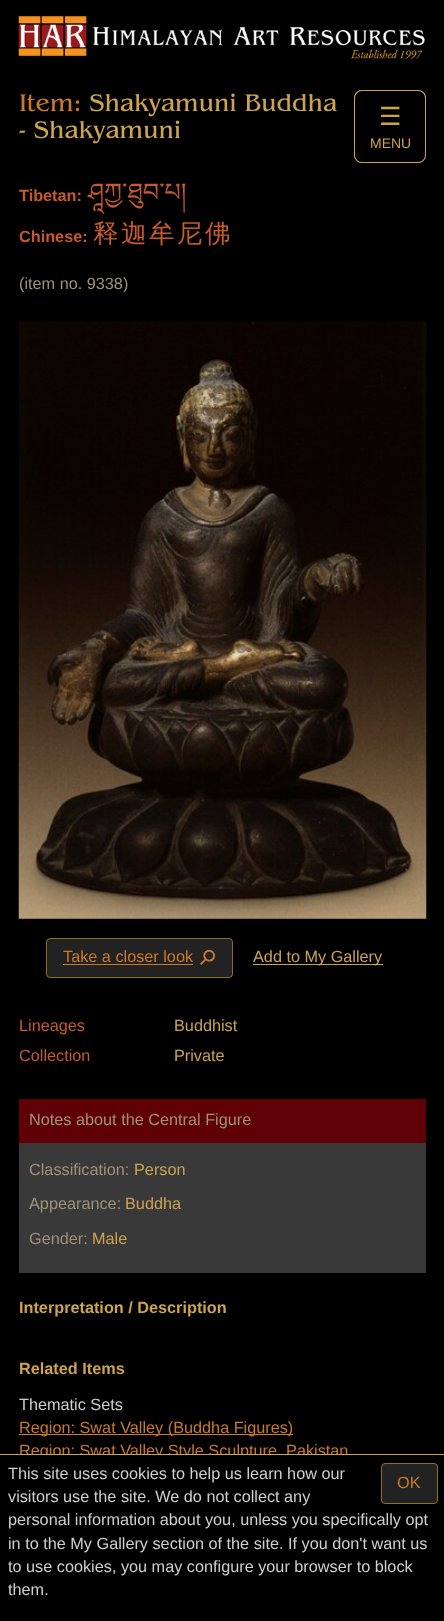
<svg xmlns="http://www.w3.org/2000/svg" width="444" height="1621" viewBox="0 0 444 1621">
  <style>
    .t1 { font: 25px 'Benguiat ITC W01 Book'; fill: #cc792a; }
    .t2 { font: 25px 'Benguiat ITC W01 Book'; fill: #cca351; }
    .t3 { font: 25px DejaVu Sans; fill: #cca351; }
    .t4 { font: 14px Liberation Sans; fill: #cca351; }
    .t5 { font: bold 16.25px Liberation Sans; fill: #c65a2d; }
    .t6 { font: 25.5px Noto Serif Tibetan; fill: #c65a2d; }
    .t7 { font: 500 25.5px WenQuanYi Zen Hei; letter-spacing: 2.5px; fill: #c65a2d; }
    .t8 { font: 16.25px Liberation Sans; fill: #9f927a; }
    .t9 { font: 16.25px Liberation Sans; fill: #cc792a; }
    .t10 { font: 21px DejaVu Sans; fill: #cc792a; }
    .t11 { font: 16.25px Liberation Sans; fill: #cca351; }
    .t12 { font: 16.25px Liberation Sans; fill: #c65a2d; }
    .t13 { font: bold 16.25px Liberation Sans; fill: #cca351; }
    .t14 { font: 16.25px Liberation Sans; fill: #cfcfcf; }
  </style>
  <rect width="100%" height="100%" fill="#000"/>
  <image x="18" y="16" width="407" height="43" href="images/1.png"/>
  <text x="19" y="111" class="t1">Item:</text>
  <text x="89" y="111" class="t2">Shakyamuni Buddha</text>
  <text x="19" y="138" class="t2">- Shakyamuni</text>
  <rect x="354" y="90" width="72" height="73" rx="8" fill="#cca351" filter="blur(0.5px)"/>
  <rect x="354.5" y="90.5" width="71" height="72" rx="7.5" fill="#000" stroke="#cca351"/>
  <text x="379" y="125" class="t3">☰</text>
  <text x="370" y="148" class="t4">MENU</text>
  <text x="19" y="201" class="t5">Tibetan:</text>
  <text x="88" y="201" class="t6">ཤཱཀྱ་ཐུབ་པ།</text>
  <text x="19" y="242" class="t5">Chinese:</text>
  <text x="93" y="242" class="t7">释迦牟尼佛</text>
  <text x="19" y="289" class="t8">(item no. 9338)</text>
  <image x="18" y="321" width="409" height="598" href="images/2.png"/>
  <rect x="46.5" y="938.5" width="186" height="39" rx="3.5" fill="#222" stroke="#8e6c29"/>
  <text x="63" y="962" class="t9">Take a closer look</text>
  <rect x="63" y="964" width="130" height="1" fill="#cc792a"/>
  <text x="197" y="957" transform="rotate(45 197 957)" class="t10">⚲</text>
  <rect x="253" y="964" width="130" height="1" fill="#cca351"/>
  <text x="253" y="962" class="t11">Add to My Gallery</text>
  <text x="19" y="1031" class="t12">Lineages</text>
  <text x="174" y="1031" class="t11">Buddhist</text>
  <text x="19" y="1061" class="t12">Collection</text>
  <text x="174" y="1061" class="t11">Private</text>
  <rect x="19" y="1143" width="407" height="130" fill="#393939"/>
  <rect x="19" y="1099" width="407" height="44" fill="#5e0005"/>
  <text x="29" y="1125" class="t8">Notes about the Central Figure</text>
  <text x="29" y="1175" class="t8">Classification:</text>
  <text x="134" y="1175" class="t11">Person</text>
  <text x="29" y="1209" class="t8">Appearance:</text>
  <text x="125" y="1209" class="t11">Buddha</text>
  <text x="29" y="1244" class="t8">Gender:</text>
  <text x="92" y="1244" class="t11">Male</text>
  <text x="19" y="1313" class="t13">Interpretation / Description</text>
  <text x="19" y="1374" class="t13">Related Items</text>
  <text x="19" y="1410" class="t14">Thematic Sets</text>
  <rect x="19" y="1434" width="274" height="1" fill="#cc792a"/>
  <text x="19" y="1433" class="t9">Region: Swat Valley (Buddha Figures)</text>
  <text x="19" y="1456" class="t9">Region: Swat Valley Style Sculpture, Pakistan</text>
  <rect x="20" y="1455" width="328" height="5" fill="#000"/>
  <rect x="0" y="1454" width="444" height="1" fill="#cca351"/>
  <text x="8" y="1479" class="t14">This site uses cookies to help us learn how our</text>
  <text x="8" y="1502" class="t14">visitors use the site. We do not collect any</text>
  <text x="8" y="1525" class="t14">personal information about you, unless you specifically opt</text>
  <text x="8" y="1549" class="t14">in to the My Gallery section of the site. If you don't want us</text>
  <text x="8" y="1572" class="t14">to use cookies, you may configure your browser to block</text>
  <text x="8" y="1595" class="t14">them.</text>
  <rect x="381.5" y="1463.5" width="56" height="40" rx="3.5" fill="#222" stroke="#8e6c29"/>
  <text x="397" y="1488" class="t9">OK</text>
</svg>
